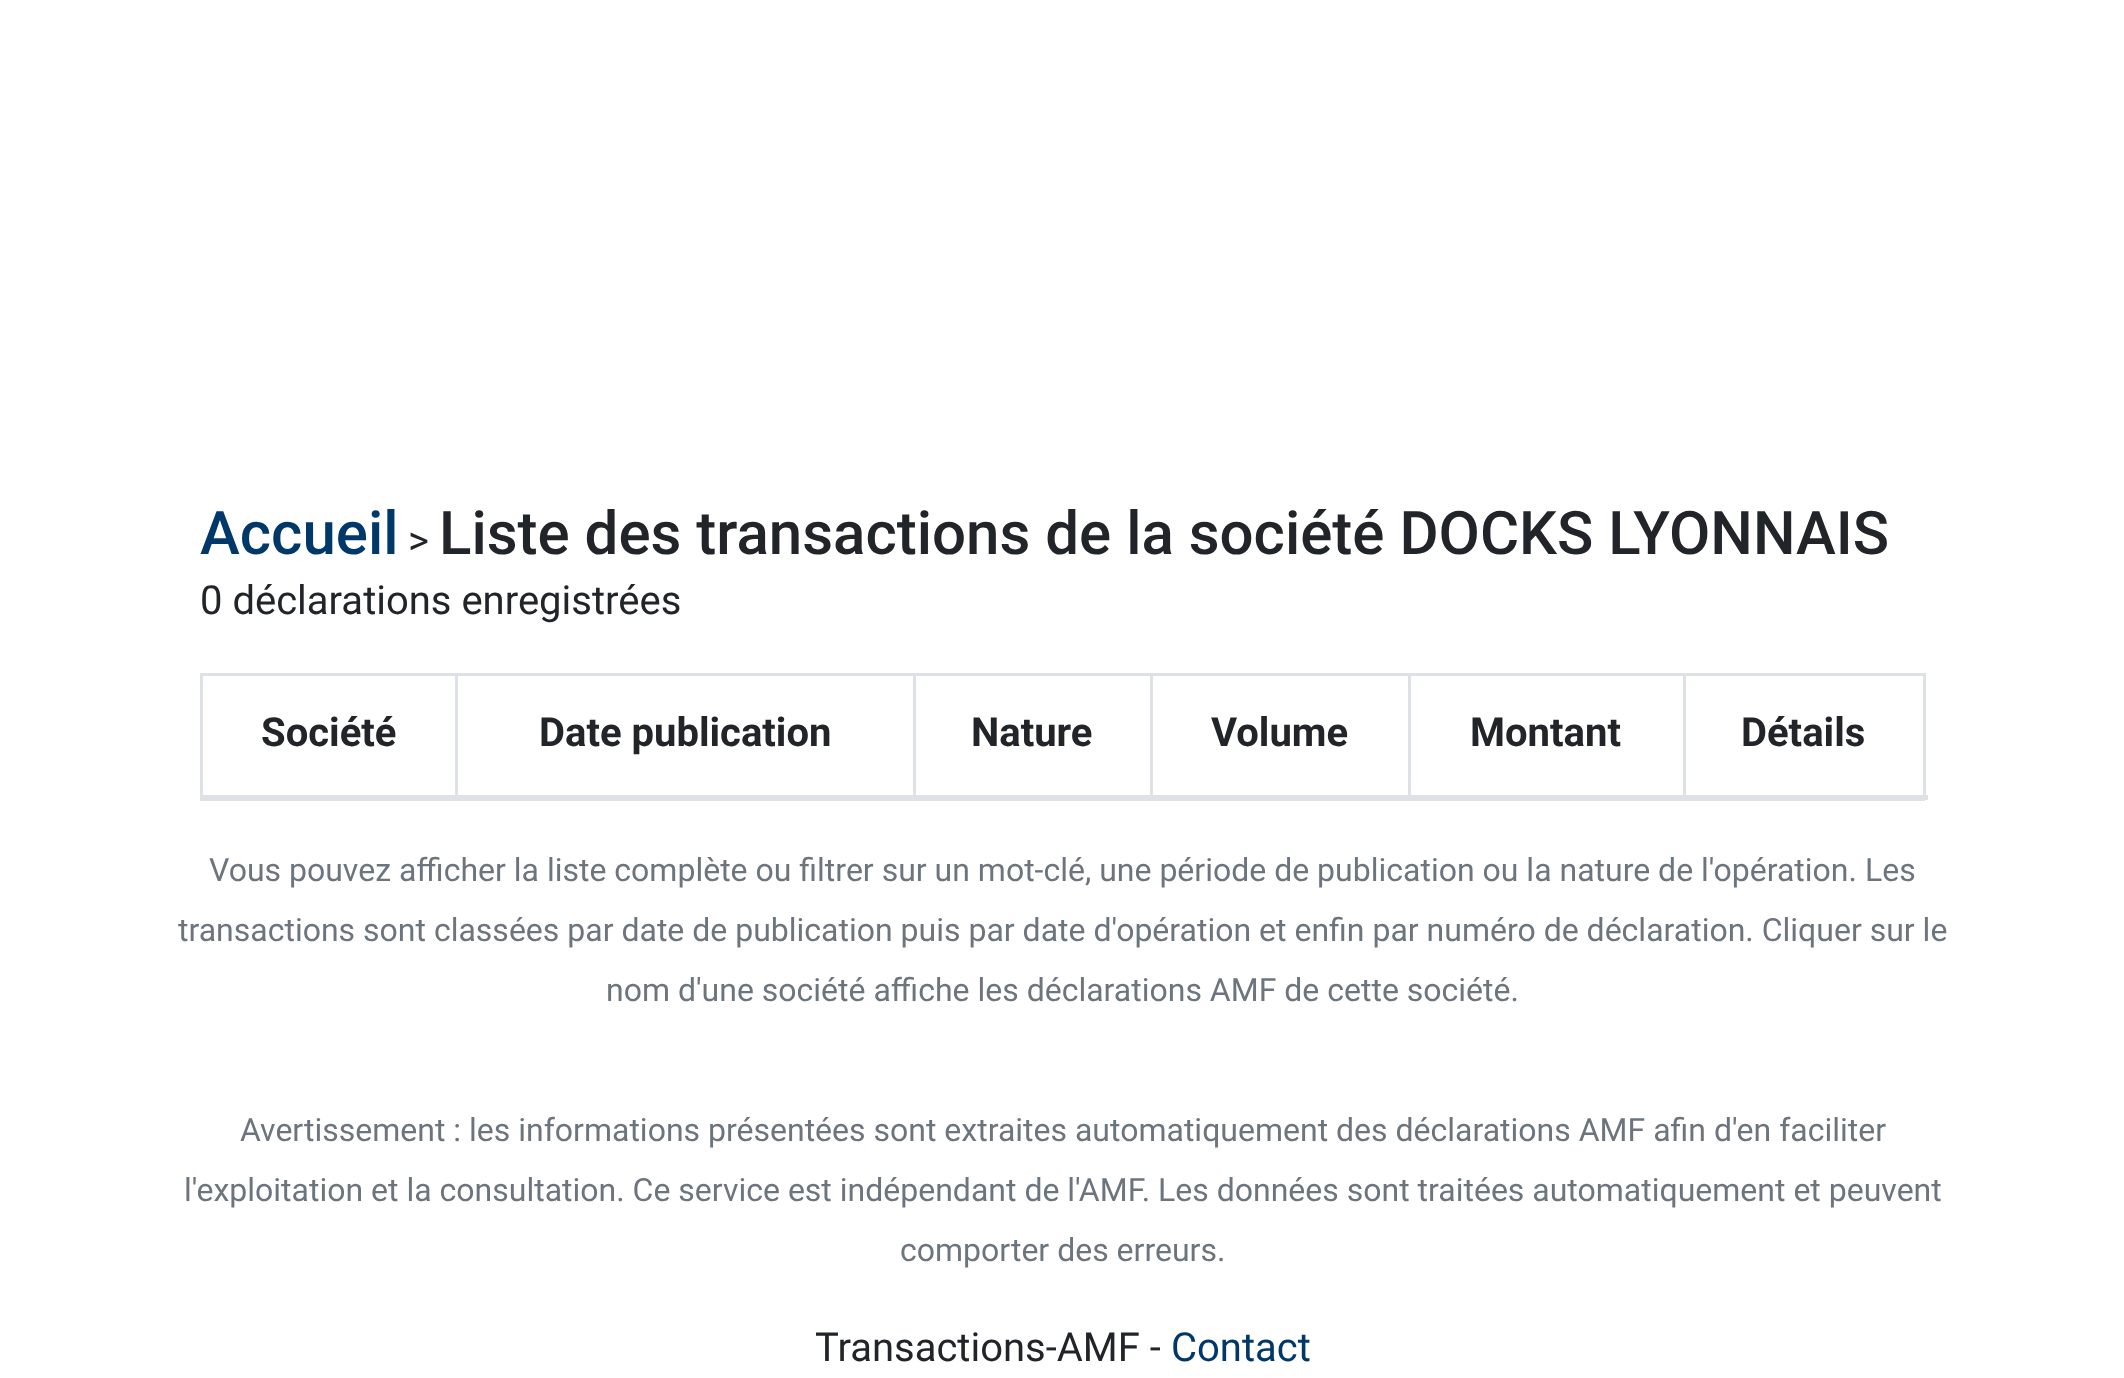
<svg xmlns="http://www.w3.org/2000/svg" width="2124" height="1378" viewBox="0 0 2124 1378">
  <style>
    .t1 { font: 500 60px Roboto; fill: #003869; }
    .t2 { font: 40px Roboto; fill: #212529; }
    .t3 { font: 500 60px Roboto; fill: #212529; }
    .t4 { font: bold 40px Roboto; fill: #212529; }
    .t5 { font: 32px Roboto; fill: #6c757d; }
    .t6 { font: 40px Roboto; fill: #003869; }
  </style>
  <rect width="100%" height="100%" fill="#fff"/>
  <text x="200" y="554" class="t1">Accueil</text>
  <text x="408" y="554" class="t2">&gt;</text>
  <text x="439" y="554" class="t3">Liste des transactions de la société DOCKS LYONNAIS</text>
  <text x="200" y="614" class="t2">0 déclarations enregistrées</text>
  <rect x="200" y="673" width="1725" height="3" fill="#dee2e6"/>
  <rect x="1923" y="673" width="3" height="127" fill="#dee2e6"/>
  <rect x="200" y="800" width="1725" height="1" fill="#dee2e6"/>
  <rect x="200" y="673" width="3" height="127" fill="#dee2e6"/>
  <text x="261" y="746" class="t4">Société</text>
  <rect x="455" y="673" width="3" height="125" fill="#dee2e6"/>
  <text x="539" y="746" class="t4">Date publication</text>
  <rect x="913" y="673" width="3" height="125" fill="#dee2e6"/>
  <text x="971" y="746" class="t4">Nature</text>
  <rect x="1150" y="673" width="3" height="125" fill="#dee2e6"/>
  <text x="1211" y="746" class="t4">Volume</text>
  <rect x="1408" y="673" width="3" height="125" fill="#dee2e6"/>
  <text x="1470" y="746" class="t4">Montant</text>
  <rect x="1683" y="673" width="3" height="125" fill="#dee2e6"/>
  <rect x="200" y="795" width="1728" height="5" fill="#dee2e6"/>
  <text x="1741" y="746" class="t4">Détails</text>
  <text x="209" y="881" class="t5">Vous pouvez afficher la liste complète ou filtrer sur un mot-clé, une période de publication ou la nature de l'opération.</text>
  <text x="1865" y="881" class="t5">Les</text>
  <text x="178" y="941" class="t5">transactions sont classées par date de publication puis par date d'opération et enfin par numéro de déclaration. Cliquer sur le</text>
  <text x="606" y="1001" class="t5">nom d'une société affiche les déclarations AMF de cette société.</text>
  <text x="240" y="1141" class="t5">Avertissement : les informations présentées sont extraites automatiquement des déclarations AMF afin d'en faciliter</text>
  <text x="184" y="1201" class="t5">l'exploitation et la consultation. Ce service est indépendant de l'AMF. Les données sont traitées automatiquement et peuvent</text>
  <text x="900" y="1261" class="t5">comporter des erreurs.</text>
  <text x="815" y="1361" class="t2">Transactions-AMF -</text>
  <text x="1171" y="1361" class="t6">Contact</text>
</svg>
